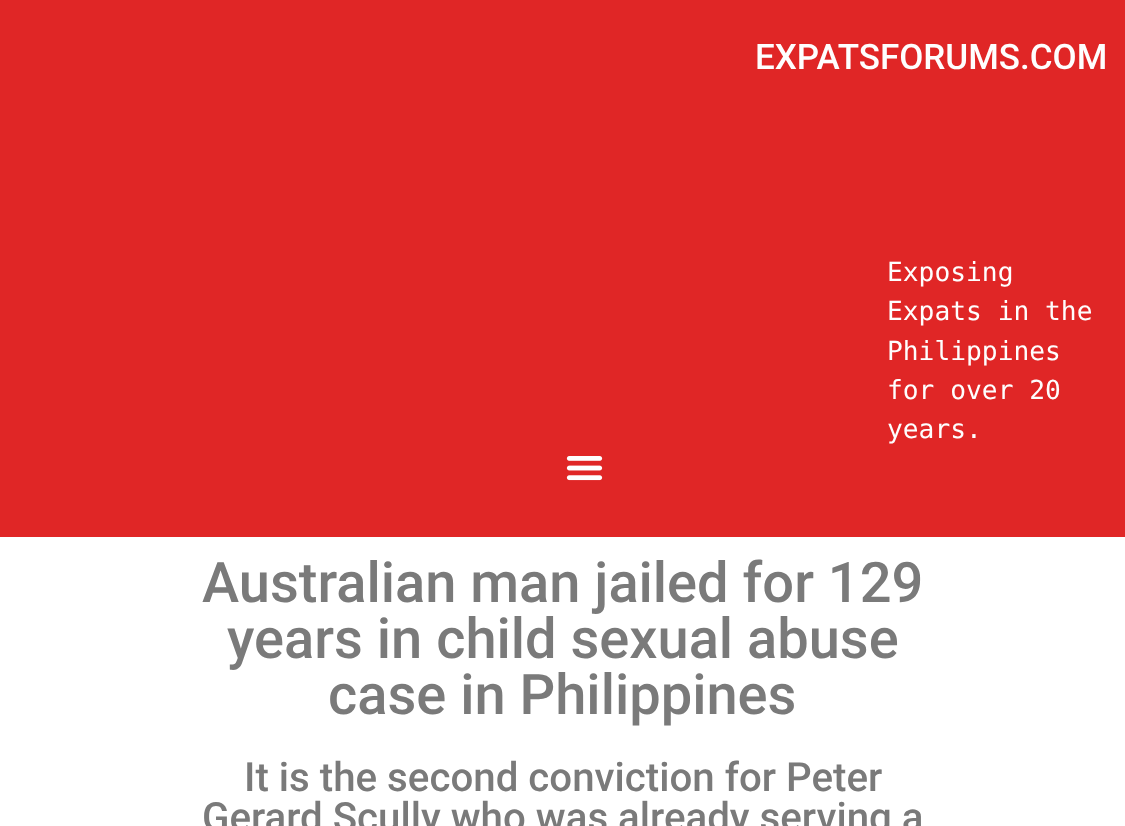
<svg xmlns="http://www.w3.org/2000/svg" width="1125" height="826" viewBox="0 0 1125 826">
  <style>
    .t1 { font: 500 35px Roboto; fill: #fefefe; }
    .t2 { font: 26.25px DejaVu Sans Mono; fill: #fefefe; }
    .t3 { font: 500 56px Roboto; fill: #7a7a7a; }
    .t4 { font: 500 40.25px Roboto; fill: #7a7a7a; }
  </style>
  <rect width="100%" height="100%" fill="#fff"/>
  <rect x="0" y="0" width="1125" height="537" fill="#e02626"/>
  <text x="755" y="69" class="t1">EXPATSFORUMS.COM</text>
  <text x="887" y="281" class="t2">Exposing</text>
  <text x="887" y="320" class="t2">Expats in the</text>
  <text x="887" y="360" class="t2">Philippines</text>
  <text x="887" y="399" class="t2">for over 20</text>
  <text x="887" y="438" class="t2">years.</text>
  <image x="566" y="456" width="37" height="25" href="images/1.png"/>
  <text x="202" y="602" class="t3">Australian man jailed for 129</text>
  <text x="227" y="658" class="t3">years in child sexual abuse</text>
  <text x="328" y="714" class="t3">case in Philippines</text>
  <text x="244" y="791" class="t4">It is the second conviction for Peter</text>
  <text x="202" y="831" class="t4">Gerard Scully who was already serving a</text>
</svg>
